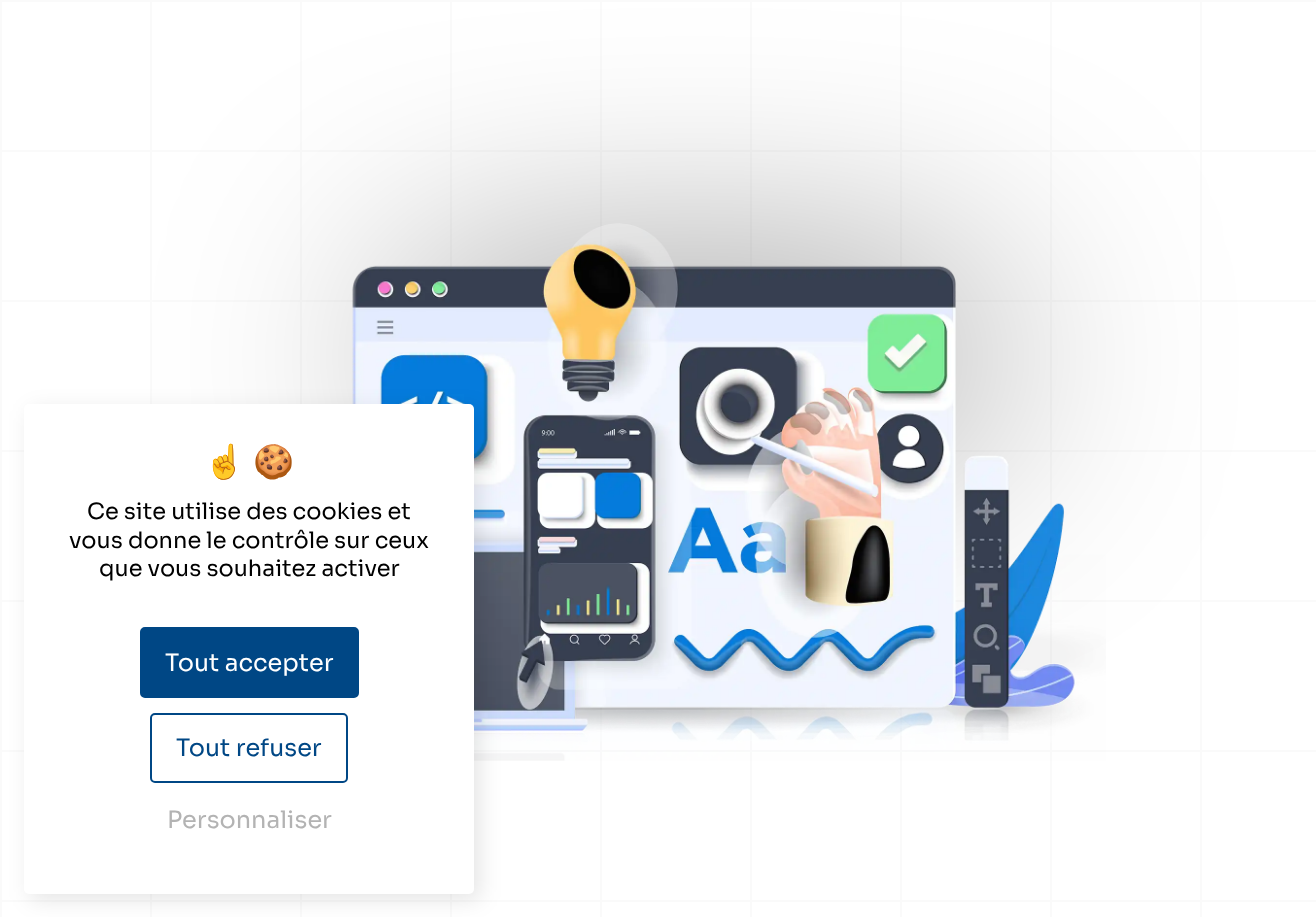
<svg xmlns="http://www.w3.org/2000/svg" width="1316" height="917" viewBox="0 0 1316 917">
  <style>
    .t1 { font: 33px Noto Color Emoji; fill: #242424; }
    .t2 { font: 22.5px Sora; fill: #000; }
    .t3 { font: 24px Sora; fill: #fff; }
    .t4 { font: 24px Sora; fill: #004785; }
    .t5 { font: 24px Sora; fill: #b3b3b3; }
  </style>
  <rect width="100%" height="100%" fill="#fff"/>
  <rect x="0" y="0" width="2" height="917" fill="#fafafa"/>
  <rect x="150" y="0" width="2" height="917" fill="#fafafa"/>
  <rect x="300" y="0" width="2" height="917" fill="#fafafa"/>
  <rect x="450" y="0" width="2" height="917" fill="#fafafa"/>
  <rect x="600" y="0" width="2" height="917" fill="#fafafa"/>
  <rect x="750" y="0" width="2" height="917" fill="#fafafa"/>
  <rect x="900" y="0" width="2" height="917" fill="#fafafa"/>
  <rect x="1050" y="0" width="2" height="917" fill="#fafafa"/>
  <rect x="1200" y="0" width="2" height="917" fill="#fafafa"/>
  <rect x="0" y="0" width="1316" height="2" fill="#fafafa"/>
  <rect x="0" y="150" width="1316" height="2" fill="#fafafa"/>
  <rect x="0" y="300" width="1316" height="2" fill="#fafafa"/>
  <rect x="0" y="450" width="1316" height="2" fill="#fafafa"/>
  <rect x="0" y="600" width="1316" height="2" fill="#fafafa"/>
  <rect x="0" y="750" width="1316" height="2" fill="#fafafa"/>
  <rect x="0" y="900" width="1316" height="2" fill="#fafafa"/>
  <rect x="395" y="282" width="600" height="150" rx="75" fill="#00000080" filter="blur(120px)"/>
  <image x="352" y="223" width="754" height="538" href="images/1.png"/>
  <rect x="30" y="410" width="450" height="490" rx="5" fill="#0000001a" filter="blur(11px)"/>
  <rect x="24" y="404" width="450" height="490" rx="5" fill="#fff"/>
  <text x="204" y="473" class="t1">☝</text>
  <text x="253" y="473" class="t1">🍪</text>
  <text x="87" y="519" class="t2">Ce site utilise des cookies et</text>
  <text x="69" y="548" class="t2">vous donne le contrôle sur ceux</text>
  <text x="99" y="576" class="t2">que vous souhaitez activer</text>
  <rect x="141" y="628" width="217" height="69" rx="4" fill="#004785" stroke="#004785" stroke-width="2"/>
  <text x="165" y="671" class="t3">Tout accepter</text>
  <rect x="151" y="714" width="196" height="68" rx="4" fill="none" stroke="#004785" stroke-width="2"/>
  <text x="176" y="756" class="t4">Tout refuser</text>
  <text x="167" y="828" class="t5">Personnaliser</text>
</svg>
